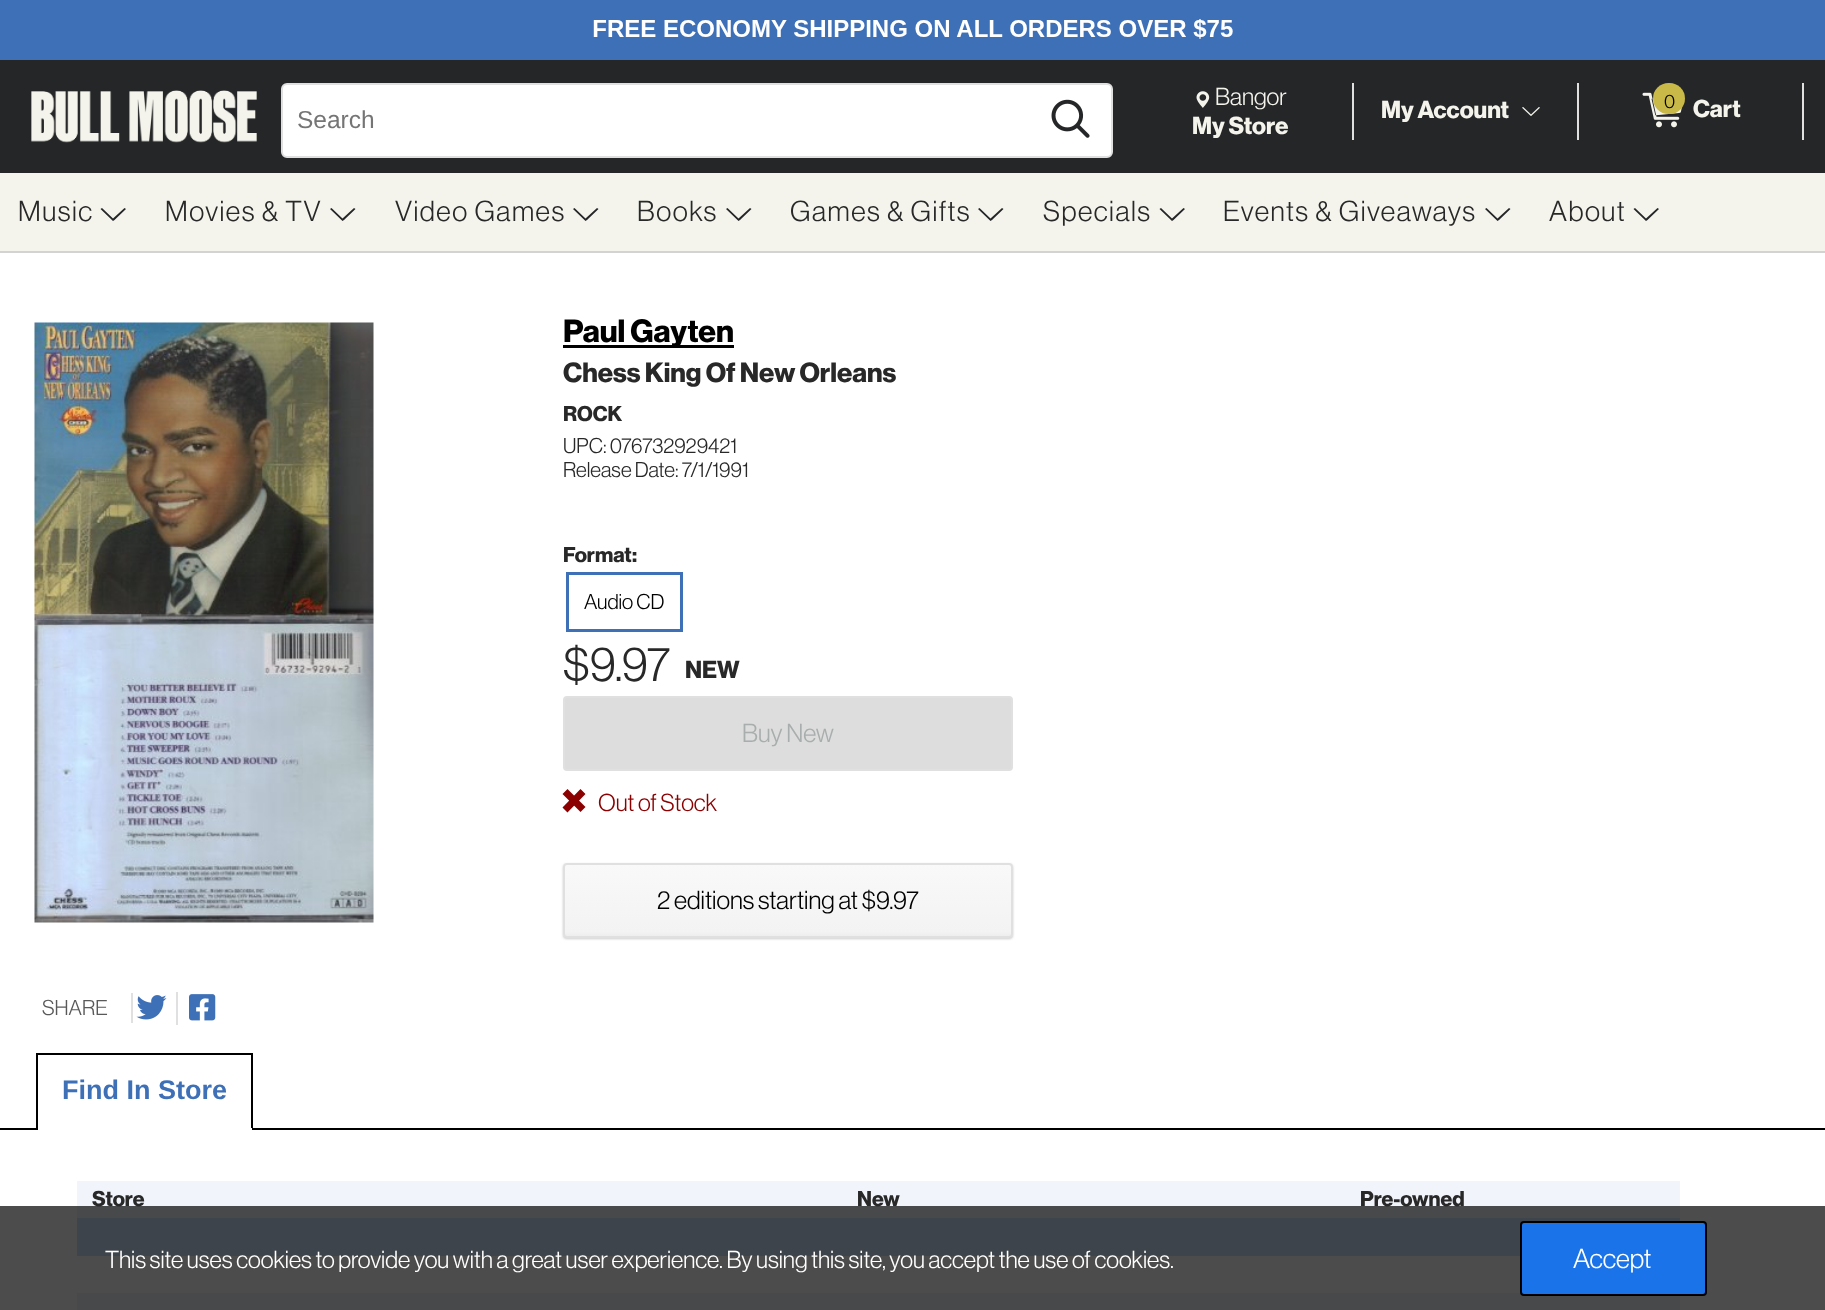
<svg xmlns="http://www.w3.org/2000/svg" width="1825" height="1310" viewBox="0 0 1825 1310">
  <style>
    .t1 { font: 24.5px Liberation Sans; fill: #757575; }
    .t2 { font: 24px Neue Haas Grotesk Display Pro; fill: #f4f4ed; }
    .t3 { font: bold 24px Neue Haas Grotesk Display Pro; fill: #f4f4ed; }
    .t4 { font: 19px Neue Haas Grotesk Display Pro; fill: #000; }
    .t5 { font: 28.25px Neue Haas Grotesk Display Pro; letter-spacing: 1.5px; fill: #282828; }
    .t6 { font: bold 31.5px Neue Haas Grotesk Display Pro; fill: #000; }
    .t7 { font: bold 27.25px Neue Haas Grotesk Display Pro; fill: #282828; }
    .t8 { font: bold 21px Neue Haas Grotesk Display Pro; fill: #282828; }
    .t9 { font: 21px Neue Haas Grotesk Display Pro; fill: #282828; }
    .t10 { font: 21px Neue Haas Grotesk Display Pro; fill: #000; }
    .t11 { font: 48px Neue Haas Grotesk Display Pro; fill: #282828; }
    .t12 { font: bold 24px Neue Haas Grotesk Display Pro; fill: #282828; }
    .t13 { font: 25.5px Neue Haas Grotesk Display Pro; fill: #a8adae; }
    .t14 { font: 24px Neue Haas Grotesk Display Pro; fill: #8b0000; }
    .t15 { font: 25.5px Neue Haas Grotesk Display Pro; fill: #000; }
    .t16 { font: 21px Neue Haas Grotesk Display Pro; fill: #595959; }
    .t17 { font: bold 27px Liberation Sans; fill: #3e70b7; }
    .t18 { font: 24px Neue Haas Grotesk Display Pro; fill: #fff; }
    .t19 { font: 27px Neue Haas Grotesk Display Pro; fill: #fff; }
  </style>
  <defs>
    <clipPath id="clip1"><rect x="563" y="863" width="450" height="75" rx="4"/></clipPath>
    <linearGradient id="g1" gradientUnits="userSpaceOnUse" x1="788" y1="864" x2="788" y2="936"><stop offset="0" stop-color="#f9f9f9"/><stop offset="0.94" stop-color="#f4f3f3"/><stop offset="1" stop-color="#eee"/></linearGradient>
  </defs>
  <rect width="100%" height="100%" fill="#fff"/>
  <rect x="0" y="0" width="1825" height="60" fill="#3e70b7"/>
  <image x="593" y="19" width="640" height="20" href="images/1.png"/>
  <rect x="0" y="60" width="1825" height="113" fill="#252627"/>
  <image x="31" y="90" width="226" height="53" href="images/2.png"/>
  <rect x="282" y="84" width="830" height="73" rx="5" fill="#fff" stroke="#e0e0e0" stroke-width="2"/>
  <text x="297" y="128" class="t1">Search</text>
  <image x="1051" y="99" width="39" height="39" href="images/3.png"/>
  <rect x="1352" y="83" width="2" height="57" fill="#e0e0e0"/>
  <image x="1196" y="91" width="14" height="17" href="images/4.png"/>
  <text x="1215" y="105" class="t2">Bangor</text>
  <text x="1192" y="134" class="t3">My Store</text>
  <rect x="1577" y="83" width="2" height="57" fill="#e0e0e0"/>
  <text x="1381" y="118" class="t3">My Account</text>
  <image x="1522" y="107" width="18" height="9" href="images/5.png"/>
  <rect x="1802" y="83" width="2" height="57" fill="#e0e0e0"/>
  <image x="1642" y="92" width="41" height="36" href="images/6.png"/>
  <rect x="1653" y="83" width="32" height="31" rx="15.5" fill="#c8b948"/>
  <text x="1664" y="108" class="t4">0</text>
  <text x="1693" y="117" class="t3">Cart</text>
  <rect x="0" y="173" width="1825" height="78" fill="#f4f4ed"/>
  <text x="18" y="221" class="t5">Music</text>
  <path d="M114.5 220L126 209L124.5 208L113 218.5L102 208L100.5 209L113 221Z" fill="#252627"/>
  <text x="165" y="221" class="t5">Movies &amp; TV</text>
  <path d="M344 220L355.5 209L354 208L342.5 218.5L331.5 208L330 209L342.5 221Z" fill="#252627"/>
  <text x="395" y="221" class="t5">Video Games</text>
  <path d="M587 220L598.5 209L597 208L585.5 218.5L574.5 208L573 209L585.5 221Z" fill="#252627"/>
  <text x="637" y="221" class="t5">Books</text>
  <path d="M740 220L751.5 209L750 208L738.5 218.5L727.5 208L726 209L738.5 221Z" fill="#252627"/>
  <text x="790" y="221" class="t5">Games &amp; Gifts</text>
  <path d="M992 220L1003.5 209L1002 208L990.5 218.5L979.5 208L978 209L990.5 221Z" fill="#252627"/>
  <text x="1043" y="221" class="t5">Specials</text>
  <path d="M1173.5 220L1185 209L1183.5 208L1172 218.5L1161 208L1159.5 209L1172 221Z" fill="#252627"/>
  <text x="1223" y="221" class="t5">Events &amp; Giveaways</text>
  <path d="M1499 220L1510.5 209L1509 208L1497.5 218.5L1486.5 208L1485 209L1497.5 221Z" fill="#252627"/>
  <text x="1549" y="221" class="t5">About</text>
  <path d="M1647.5 220L1659 209L1657.5 208L1646 218.5L1635 208L1633.5 209L1646 221Z" fill="#252627"/>
  <rect x="0" y="251" width="1825" height="2" fill="#d3d3d3"/>
  <image x="34" y="322" width="340" height="601" href="images/7.png"/>
  <rect x="563" y="345" width="171" height="3" fill="#000"/>
  <text x="563" y="342" class="t6">Paul Gayten</text>
  <text x="563" y="382" class="t7">Chess King Of New Orleans</text>
  <text x="563" y="421" class="t8">ROCK</text>
  <text x="563" y="453" class="t9">UPC: 076732929421</text>
  <text x="563" y="477" class="t9">Release Date: 7/1/1991</text>
  <text x="563" y="562" class="t8">Format:</text>
  <rect x="567.5" y="573.5" width="114" height="57" fill="none" stroke="#3e70b7" stroke-width="3"/>
  <text x="584" y="609" class="t10">Audio CD</text>
  <text x="563" y="681" class="t11">$9.97</text>
  <text x="685" y="678" class="t12">NEW</text>
  <rect x="564" y="697" width="448" height="73" rx="3" fill="#ddd" stroke="#e0e0e0" stroke-width="2"/>
  <text x="742" y="742" class="t13">Buy New</text>
  <path d="M567.5 812.5L562.5 807.5L580.5 789L585.5 794ZM562.5 794L567.5 789L585.5 807L580.5 812Z" fill="#8b0000"/>
  <text x="598" y="811" class="t14">Out of Stock</text>
  <rect x="563" y="864" width="450" height="75" rx="4" fill="#cdcdcd" filter="blur(1px)"/>
  <g clip-path="url(#clip1)">
    <rect x="563" y="864" width="450" height="72" fill="url(#g1)"/>
  </g>
  <rect x="564" y="864" width="448" height="73" rx="3" fill="none" stroke="#e0e0e0" stroke-width="2"/>
  <text x="657" y="909" class="t15">2 editions starting at $9.97</text>
  <text x="42" y="1015" class="t16">SHARE</text>
  <rect x="131" y="993" width="2" height="30" fill="#e0e0e0"/>
  <image x="136" y="995" width="31" height="25" href="images/8.png"/>
  <rect x="176" y="992" width="2" height="33" fill="#e0e0e0"/>
  <image x="189" y="994" width="27" height="27" href="images/9.png"/>
  <rect x="36" y="1053" width="216" height="2" fill="#000"/>
  <rect x="0" y="1128" width="1825" height="2" fill="#000"/>
  <rect x="251" y="1053" width="2" height="77" fill="#000"/>
  <rect x="36" y="1128" width="216" height="2" fill="#fff"/>
  <rect x="36" y="1053" width="2" height="77" fill="#000"/>
  <text x="62" y="1099" class="t17">Find In Store</text>
  <rect x="77" y="1181" width="1603" height="37" fill="#f1f5fb"/>
  <text x="92" y="1206" class="t8">Store</text>
  <text x="857" y="1206" class="t8">New</text>
  <text x="1360" y="1206" class="t8">Pre-owned</text>
  <rect x="77" y="1218" width="1603" height="38" fill="#d1e5fb"/>
  <rect x="77" y="1293" width="1603" height="17" fill="#f1f5fb"/>
  <rect x="0" y="1206" width="1825" height="104" fill="#000000b3"/>
  <text x="105" y="1268" class="t18">This site uses cookies to provide you with a great user experience. By using this site, you accept the use of cookies.</text>
  <rect x="1521" y="1222" width="185" height="73" rx="3" fill="#1a73e8" stroke="#000" stroke-width="2"/>
  <text x="1573" y="1268" class="t19">Accept</text>
</svg>
